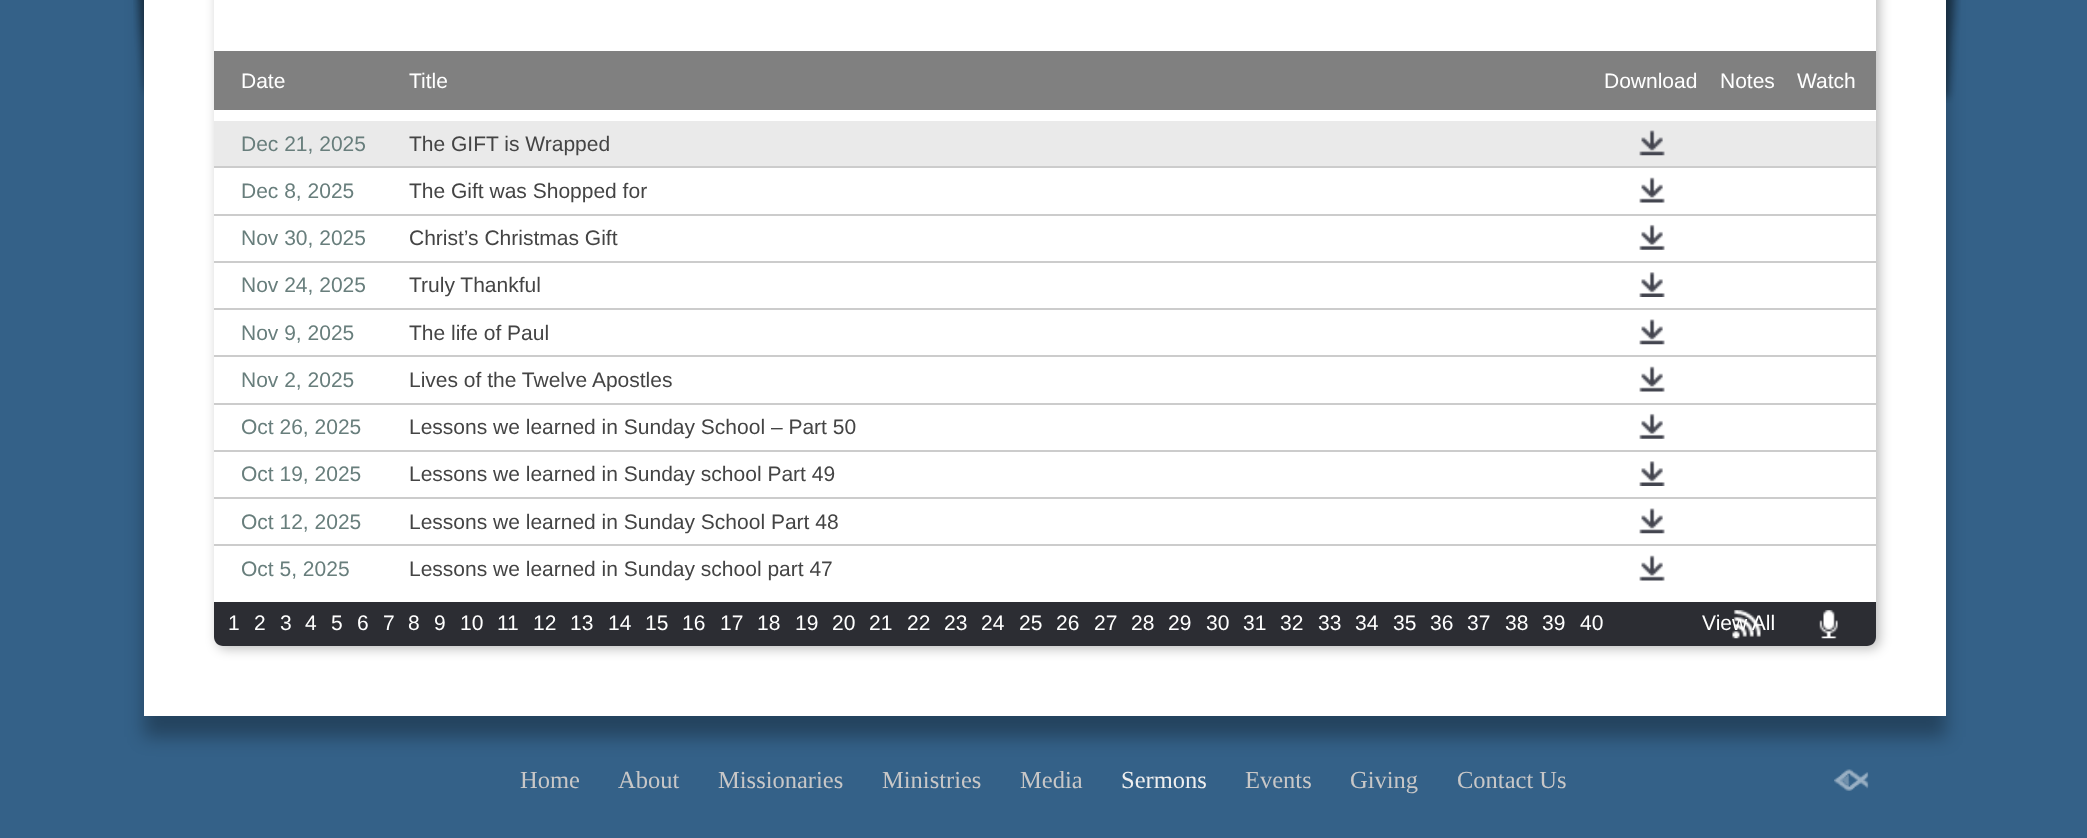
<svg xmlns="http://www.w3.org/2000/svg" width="2087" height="838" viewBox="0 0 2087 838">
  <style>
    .t1 { font: 21px Liberation Sans; fill: #fff; }
    .t2 { font: 21px Liberation Sans; fill: #687e7c; }
    .t3 { font: 21px Liberation Sans; fill: #444; }
    .t4 { font: 24.5px Liberation Serif; fill: #c8c7c7; }
    .t5 { font: 24.5px Liberation Serif; fill: #eee; }
  </style>
  <rect width="100%" height="100%" fill="#346188"/>
  <image x="133" y="0" width="1828" height="103" href="images/1.png"/>
  <rect x="144" y="-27" width="1802" height="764" fill="#0000004d" filter="blur(9px)"/>
  <rect x="144" y="0" width="1802" height="716" fill="#fff"/>
  <rect x="217" y="-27" width="1663" height="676" rx="9" fill="#00000040" filter="blur(6px)"/>
  <rect x="214" y="-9" width="1662" height="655" rx="9" fill="#fff"/>
  <rect x="214" y="51" width="1662" height="59" fill="#808080"/>
  <text x="241" y="88" class="t1">Date</text>
  <text x="409" y="88" class="t1">Title</text>
  <text x="1604" y="88" class="t1">Download</text>
  <text x="1720" y="88" class="t1">Notes</text>
  <text x="1797" y="88" class="t1">Watch</text>
  <rect x="214" y="121" width="1662" height="45" fill="#eaeaea"/>
  <text x="241" y="151" class="t2">Dec 21, 2025</text>
  <text x="409" y="151" class="t3">The GIFT is Wrapped</text>
  <image x="1639" y="130" width="26" height="26" href="images/2.png"/>
  <rect x="214" y="166" width="1662" height="2" fill="#ccc"/>
  <text x="241" y="198" class="t2">Dec 8, 2025</text>
  <text x="409" y="198" class="t3">The Gift was Shopped for</text>
  <image x="1639" y="177" width="26" height="26" href="images/3.png"/>
  <rect x="214" y="214" width="1662" height="2" fill="#ccc"/>
  <text x="241" y="245" class="t2">Nov 30, 2025</text>
  <text x="409" y="245" class="t3">Christ’s Christmas Gift</text>
  <image x="1639" y="224" width="26" height="26" href="images/4.png"/>
  <rect x="214" y="261" width="1662" height="2" fill="#ccc"/>
  <text x="241" y="292" class="t2">Nov 24, 2025</text>
  <text x="409" y="292" class="t3">Truly Thankful</text>
  <image x="1639" y="272" width="26" height="25" href="images/5.png"/>
  <rect x="214" y="308" width="1662" height="2" fill="#ccc"/>
  <text x="241" y="340" class="t2">Nov 9, 2025</text>
  <text x="409" y="340" class="t3">The life of Paul</text>
  <image x="1639" y="319" width="26" height="26" href="images/6.png"/>
  <rect x="214" y="355" width="1662" height="2" fill="#ccc"/>
  <text x="241" y="387" class="t2">Nov 2, 2025</text>
  <text x="409" y="387" class="t3">Lives of the Twelve Apostles</text>
  <image x="1639" y="366" width="26" height="26" href="images/3.png"/>
  <rect x="214" y="403" width="1662" height="2" fill="#ccc"/>
  <text x="241" y="434" class="t2">Oct 26, 2025</text>
  <text x="409" y="434" class="t3">Lessons we learned in Sunday School – Part 50</text>
  <image x="1639" y="413" width="26" height="26" href="images/4.png"/>
  <rect x="214" y="450" width="1662" height="2" fill="#ccc"/>
  <text x="241" y="481" class="t2">Oct 19, 2025</text>
  <text x="409" y="481" class="t3">Lessons we learned in Sunday school Part 49</text>
  <image x="1639" y="461" width="26" height="25" href="images/5.png"/>
  <rect x="214" y="497" width="1662" height="2" fill="#ccc"/>
  <text x="241" y="529" class="t2">Oct 12, 2025</text>
  <text x="409" y="529" class="t3">Lessons we learned in Sunday School Part 48</text>
  <image x="1639" y="508" width="26" height="26" href="images/6.png"/>
  <rect x="214" y="544" width="1662" height="2" fill="#ccc"/>
  <text x="241" y="576" class="t2">Oct 5, 2025</text>
  <text x="409" y="576" class="t3">Lessons we learned in Sunday school part 47</text>
  <image x="1639" y="555" width="26" height="26" href="images/3.png"/>
  <path d="M214 602H1876V637C1876 642 1872 646 1867 646H223C218 646 214 642 214 637Z" fill="#2c2d33"/>
  <text x="1702" y="630" class="t1">View All</text>
  <image x="1732" y="610" width="29" height="29" href="images/7.png"/>
  <image x="1819" y="610" width="19" height="29" href="images/8.png"/>
  <text x="228" y="630" class="t1">1</text>
  <text x="254" y="630" class="t1">2</text>
  <text x="280" y="630" class="t1">3</text>
  <text x="305" y="630" class="t1">4</text>
  <text x="331" y="630" class="t1">5</text>
  <text x="357" y="630" class="t1">6</text>
  <text x="383" y="630" class="t1">7</text>
  <text x="408" y="630" class="t1">8</text>
  <text x="434" y="630" class="t1">9</text>
  <text x="460" y="630" class="t1">10</text>
  <text x="497" y="630" class="t1">11</text>
  <text x="533" y="630" class="t1">12</text>
  <text x="570" y="630" class="t1">13</text>
  <text x="608" y="630" class="t1">14</text>
  <text x="645" y="630" class="t1">15</text>
  <text x="682" y="630" class="t1">16</text>
  <text x="720" y="630" class="t1">17</text>
  <text x="757" y="630" class="t1">18</text>
  <text x="795" y="630" class="t1">19</text>
  <text x="832" y="630" class="t1">20</text>
  <text x="869" y="630" class="t1">21</text>
  <text x="907" y="630" class="t1">22</text>
  <text x="944" y="630" class="t1">23</text>
  <text x="981" y="630" class="t1">24</text>
  <text x="1019" y="630" class="t1">25</text>
  <text x="1056" y="630" class="t1">26</text>
  <text x="1094" y="630" class="t1">27</text>
  <text x="1131" y="630" class="t1">28</text>
  <text x="1168" y="630" class="t1">29</text>
  <text x="1206" y="630" class="t1">30</text>
  <text x="1243" y="630" class="t1">31</text>
  <text x="1280" y="630" class="t1">32</text>
  <text x="1318" y="630" class="t1">33</text>
  <text x="1355" y="630" class="t1">34</text>
  <text x="1393" y="630" class="t1">35</text>
  <text x="1430" y="630" class="t1">36</text>
  <text x="1467" y="630" class="t1">37</text>
  <text x="1505" y="630" class="t1">38</text>
  <text x="1542" y="630" class="t1">39</text>
  <text x="1580" y="630" class="t1">40</text>
  <text x="520" y="788" class="t4">Home</text>
  <text x="618" y="788" class="t4">About</text>
  <text x="718" y="788" class="t4">Missionaries</text>
  <text x="882" y="788" class="t4">Ministries</text>
  <text x="1020" y="788" class="t4">Media</text>
  <text x="1121" y="788" class="t5">Sermons</text>
  <text x="1245" y="788" class="t4">Events</text>
  <text x="1350" y="788" class="t4">Giving</text>
  <text x="1457" y="788" class="t4">Contact Us</text>
  <image x="1834" y="769" width="35" height="22" href="images/9.png"/>
</svg>
